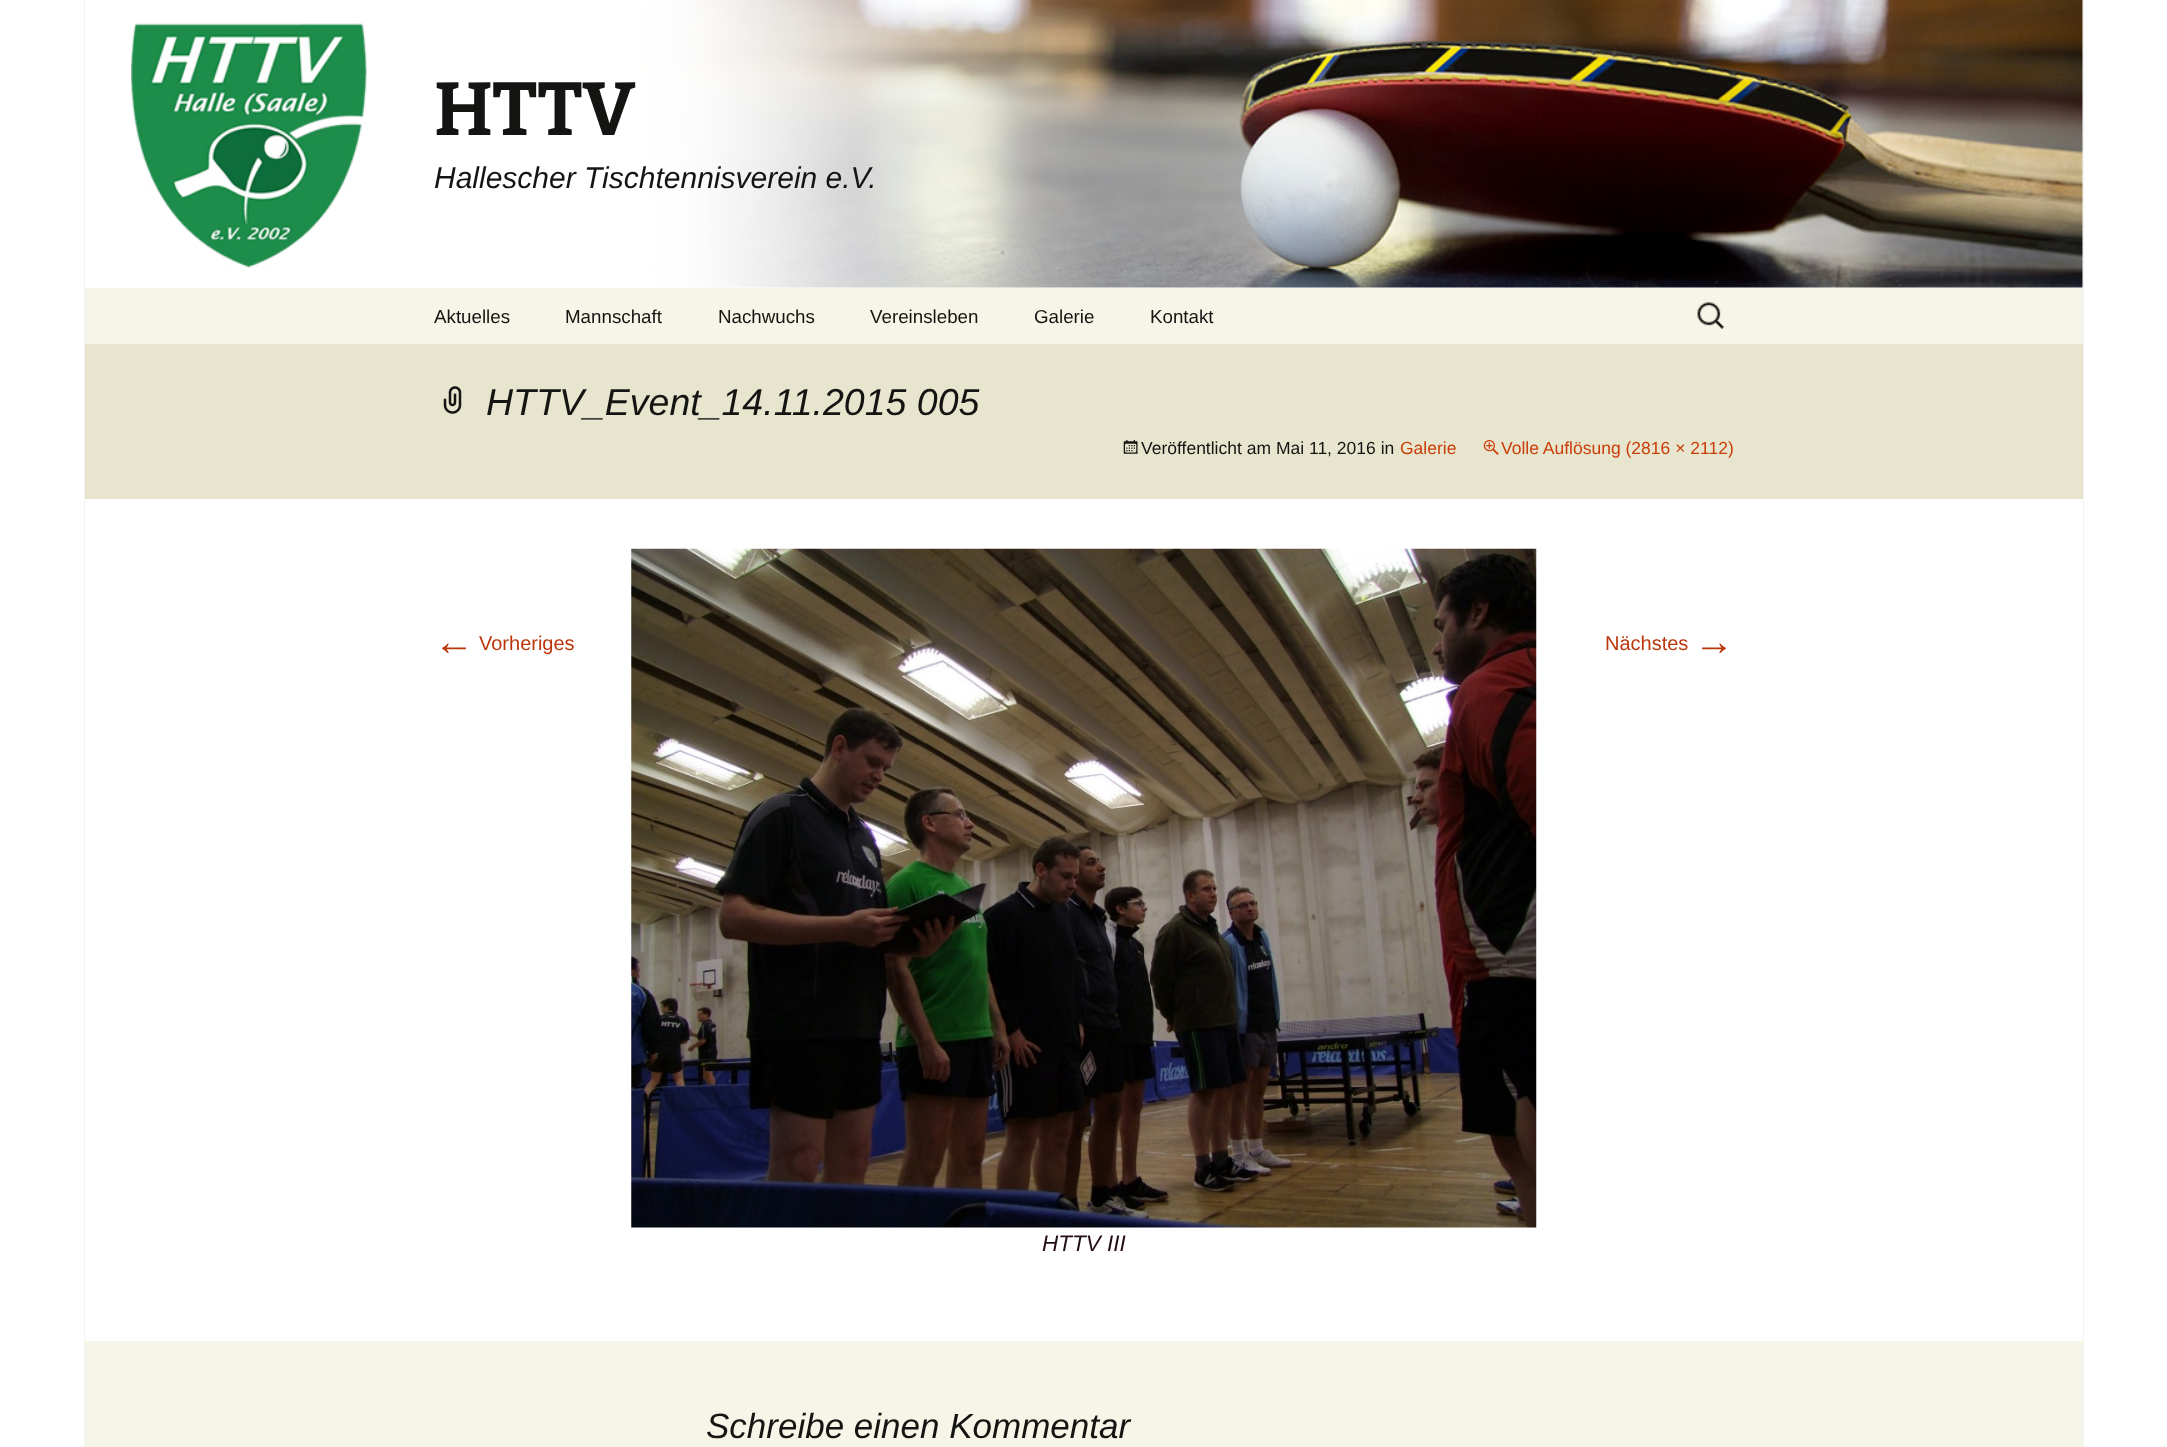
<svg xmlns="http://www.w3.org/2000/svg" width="2167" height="1447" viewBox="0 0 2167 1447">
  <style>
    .t1 { font: bold 75px Bitter; fill: #141412; }
    .t2 { font: italic 30px Liberation Sans; fill: #141412; }
    .t3 { font: 18.75px Liberation Sans; fill: #141412; }
    .t4 { font: italic 37.5px Liberation Sans; fill: #141412; }
    .t5 { font: 17.5px Liberation Sans; fill: #141412; }
    .t6 { font: 17.5px Liberation Sans; fill: #ca3c08; }
    .t7 { font: 40px Liberation Sans; fill: #bc360a; }
    .t8 { font: 20px Liberation Sans; fill: #bc360a; }
    .t9 { font: italic 22.5px Liberation Sans; fill: #220e10; }
    .t10 { font: italic 35px Liberation Sans; fill: #141412; }
  </style>
  <rect width="100%" height="100%" fill="#fff"/>
  <rect x="2083" y="0" width="1" height="1447" fill="#f2f2f2"/>
  <rect x="84" y="0" width="1" height="1447" fill="#f2f2f2"/>
  <image x="131" y="0" width="1952" height="288" href="images/1.png"/>
  <text x="434" y="135" class="t1">HTTV</text>
  <text x="434" y="188" class="t2">Hallescher Tischtennisverein e.V.</text>
  <rect x="85" y="288" width="1998" height="56" fill="#f7f5e7"/>
  <text x="434" y="323" class="t3">Aktuelles</text>
  <text x="565" y="323" class="t3">Mannschaft</text>
  <text x="718" y="323" class="t3">Nachwuchs</text>
  <text x="870" y="323" class="t3">Vereinsleben</text>
  <text x="1034" y="323" class="t3">Galerie</text>
  <text x="1150" y="323" class="t3">Kontakt</text>
  <image x="1697" y="302" width="27" height="27" href="images/2.png"/>
  <rect x="85" y="344" width="1998" height="155" fill="#e8e5ce"/>
  <image x="443" y="386" width="19" height="28" href="images/3.png"/>
  <text x="486" y="415" class="t4">HTTV_Event_14.11.2015 005</text>
  <image x="1123" y="440" width="15" height="14" href="images/4.png"/>
  <text x="1141" y="454" class="t5">Veröffentlicht am Mai 11, 2016 in</text>
  <text x="1400" y="454" class="t6">Galerie</text>
  <image x="1483" y="440" width="16" height="15" href="images/5.png"/>
  <text x="1501" y="454" class="t6">Volle Auflösung (2816 × 2112)</text>
  <text x="434" y="655" class="t7">←</text>
  <text x="479" y="650" class="t8">Vorheriges</text>
  <text x="1605" y="650" class="t8">Nächstes</text>
  <text x="1694" y="655" class="t7">→</text>
  <image x="631" y="548" width="906" height="680" href="images/6.png"/>
  <text x="1042" y="1251" class="t9">HTTV III</text>
  <rect x="85" y="1341" width="1998" height="106" fill="#f7f5e7"/>
  <text x="706" y="1438" class="t10">Schreibe einen Kommentar</text>
</svg>
